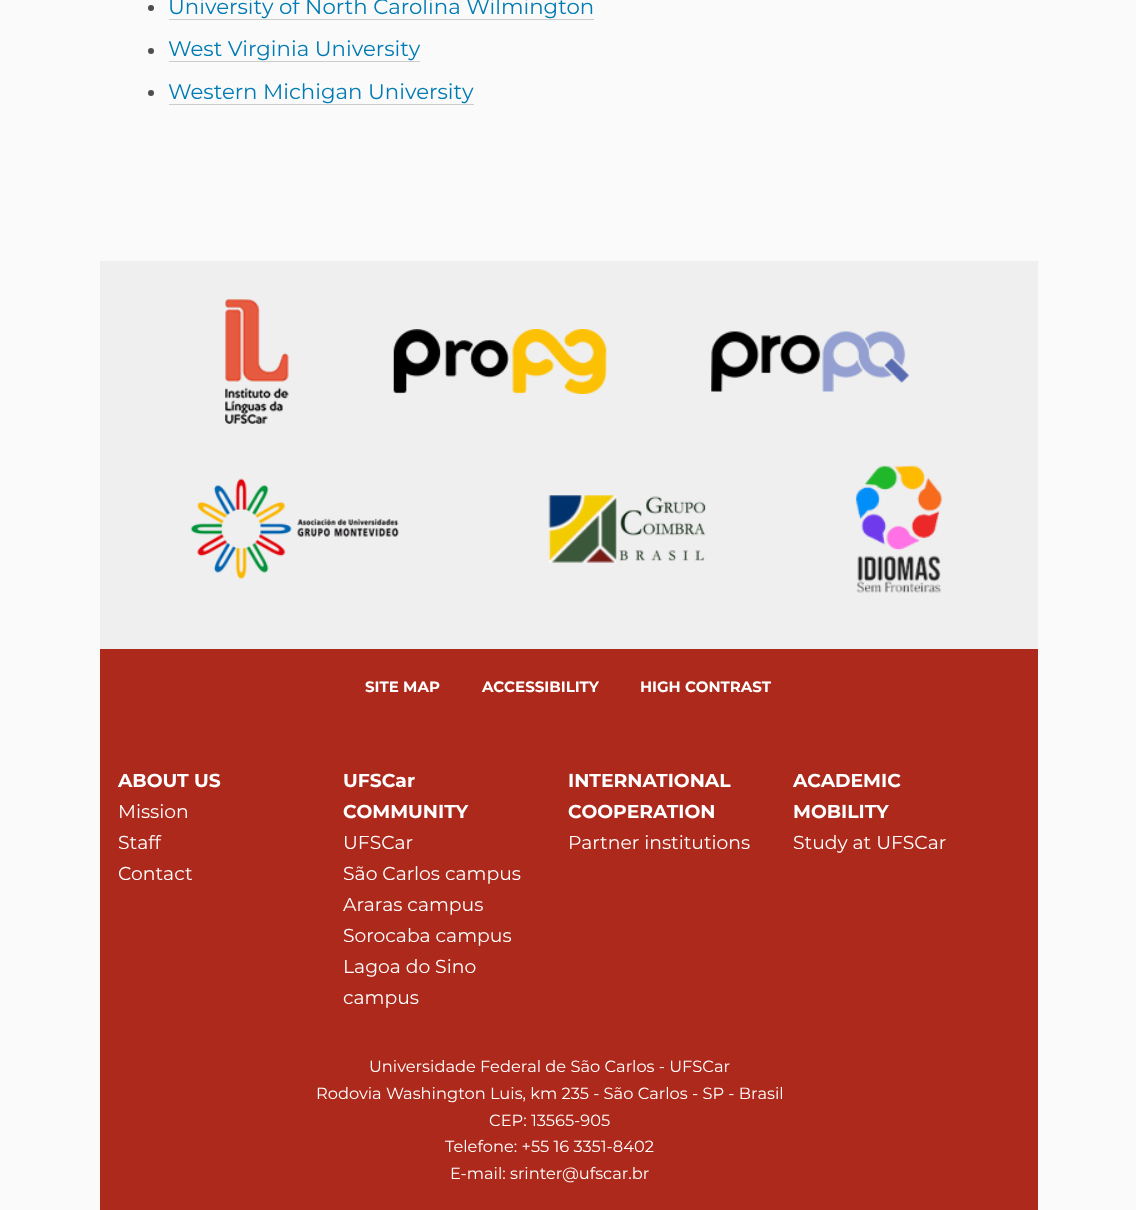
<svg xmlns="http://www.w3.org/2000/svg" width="1136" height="1210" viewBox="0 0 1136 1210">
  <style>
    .t1 { font: 21.25px Montserrat; fill: #007bb3; }
    .t2 { font: bold 15px Montserrat; fill: #fff; }
    .t3 { font: bold 18.75px Montserrat; fill: #fff; }
    .t4 { font: 18.75px Montserrat; fill: #fff; }
    .t5 { font: 16.25px Montserrat; fill: #fff; }
  </style>
  <rect width="100%" height="100%" fill="#fafafa"/>
  <circle cx="151" cy="8" r="3" fill="#4d4d4d"/>
  <text x="168" y="14" class="t1">University of North Carolina Wilmington</text>
  <rect x="169" y="19" width="425" height="1" fill="#ccc"/>
  <circle cx="151" cy="51" r="3" fill="#4d4d4d"/>
  <text x="168" y="56" class="t1">West Virginia University</text>
  <rect x="169" y="61" width="251" height="1" fill="#ccc"/>
  <circle cx="151" cy="93" r="3" fill="#4d4d4d"/>
  <text x="168" y="99" class="t1">Western Michigan University</text>
  <rect x="169" y="104" width="305" height="1" fill="#ccc"/>
  <rect x="100" y="261" width="938" height="388" fill="#efefef"/>
  <image x="225" y="299" width="64" height="125" href="images/1.png"/>
  <image x="393" y="329" width="214" height="65" href="images/2.png"/>
  <image x="711" y="331" width="198" height="61" href="images/3.png"/>
  <image x="190" y="478" width="209" height="102" href="images/4.png"/>
  <image x="548" y="495" width="158" height="68" href="images/5.png"/>
  <image x="855" y="465" width="88" height="128" href="images/6.png"/>
  <rect x="100" y="649" width="938" height="561" fill="#ad291c"/>
  <text x="365" y="692" class="t2">SITE MAP</text>
  <text x="482" y="692" class="t2">ACCESSIBILITY</text>
  <text x="640" y="692" class="t2">HIGH CONTRAST</text>
  <text x="118" y="787" class="t3">ABOUT US</text>
  <text x="118" y="818" class="t4">Mission</text>
  <text x="118" y="849" class="t4">Staff</text>
  <text x="118" y="880" class="t4">Contact</text>
  <text x="343" y="787" class="t3">UFSCar</text>
  <text x="343" y="818" class="t3">COMMUNITY</text>
  <text x="343" y="849" class="t4">UFSCar</text>
  <text x="343" y="880" class="t4">São Carlos campus</text>
  <text x="343" y="911" class="t4">Araras campus</text>
  <text x="343" y="942" class="t4">Sorocaba campus</text>
  <text x="343" y="973" class="t4">Lagoa do Sino</text>
  <text x="343" y="1004" class="t4">campus</text>
  <text x="568" y="787" class="t3">INTERNATIONAL</text>
  <text x="568" y="818" class="t3">COOPERATION</text>
  <text x="568" y="849" class="t4">Partner institutions</text>
  <text x="793" y="787" class="t3">ACADEMIC</text>
  <text x="793" y="818" class="t3">MOBILITY</text>
  <text x="793" y="849" class="t4">Study at UFSCar</text>
  <text x="369" y="1072" class="t5">Universidade Federal de São Carlos - UFSCar</text>
  <text x="316" y="1099" class="t5">Rodovia Washington Luis, km 235 - São Carlos - SP - Brasil</text>
  <text x="489" y="1126" class="t5">CEP: 13565-905</text>
  <text x="445" y="1152" class="t5">Telefone: +55 16 3351-8402</text>
  <text x="450" y="1179" class="t5">E-mail: srinter@ufscar.br</text>
</svg>
